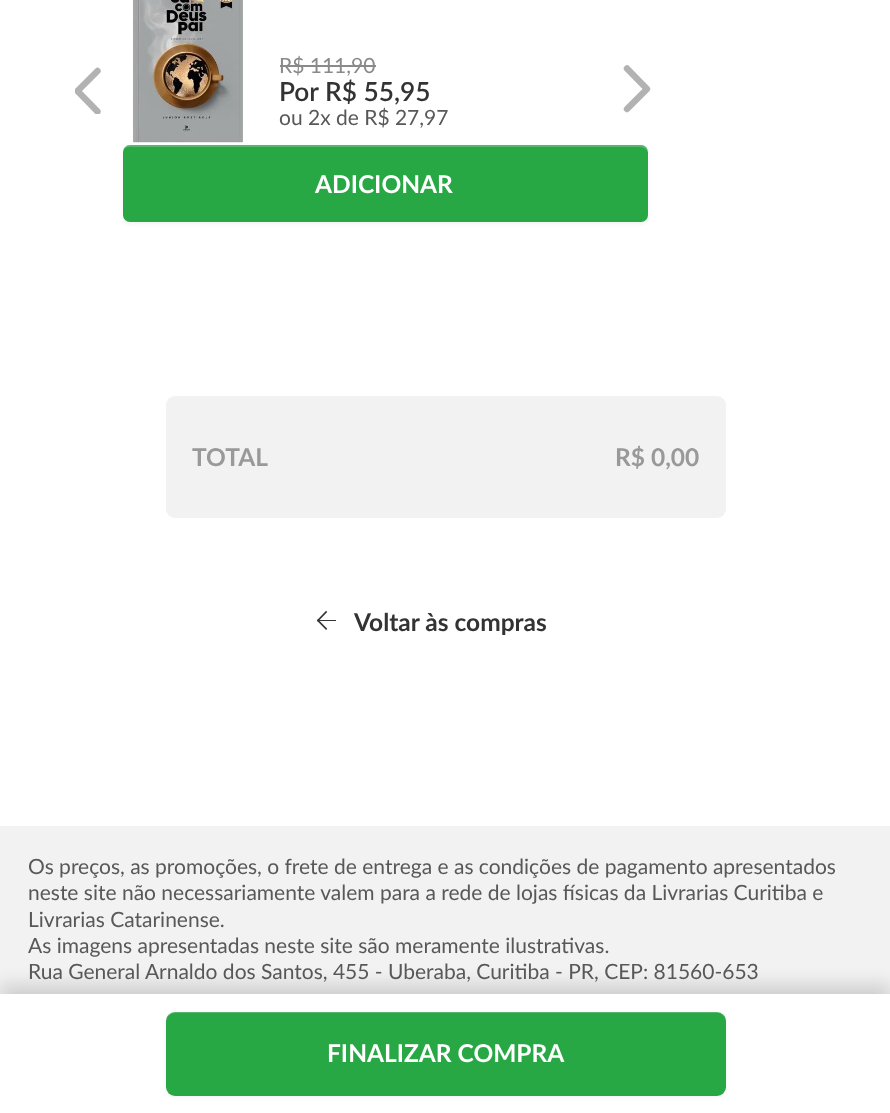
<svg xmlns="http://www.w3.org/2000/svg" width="890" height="1113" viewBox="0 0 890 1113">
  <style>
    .t1 { font: 21px Lato; fill: #8a8a8a; }
    .t2 { font: 600 26.25px Lato; fill: #333; }
    .t3 { font: 21px Lato; fill: #585858; }
    .t4 { font: bold 24.5px Lato; fill: #fff; }
    .t5 { font: bold 24.5px Lato; fill: #999; }
    .t6 { font: bold 24.5px Lato; fill: #333; }
  </style>
  <defs>
    <clipPath id="clip1"><rect x="75" y="67" width="28" height="47"/></clipPath>
  </defs>
  <rect width="100%" height="100%" fill="#fff"/>
  <g clip-path="url(#clip1)">
    <path d="M97.5 71L77.5 91L97.5 111.5" fill="none" stroke="#b2b2b2" stroke-width="6.4" stroke-linecap="round" stroke-linejoin="round"/>
  </g>
  <image x="132" y="0" width="111" height="144" href="images/1.png"/>
  <text x="279" y="73" class="t1">R$ 111,90</text>
  <rect x="280" y="65" width="96" height="2" fill="#8a8a8a"/>
  <text x="279" y="101" class="t2">Por R$ 55,95</text>
  <text x="279" y="125" class="t3">ou 2x de R$ 27,97</text>
  <rect x="123" y="147" width="525" height="77" rx="7" fill="#0000000d" filter="blur(2px)"/>
  <rect x="123" y="145" width="525" height="77" rx="7" fill="#28a745"/>
  <path d="M130 147H640C644 147 648 150 648 154V152C648 148 645 145 641 145H130C127 145 124 147 123 150C125 148 127 147 130 147Z" fill="#ffffff33"/>
  <text x="315" y="193" class="t4">ADICIONAR</text>
  <path d="M627 109L647 89L627 68.5" fill="none" stroke="#b2b2b2" stroke-width="6.4" stroke-linecap="round" stroke-linejoin="round"/>
  <rect x="166" y="396" width="560" height="122" rx="9" fill="#f2f2f2"/>
  <text x="192" y="466" class="t5">TOTAL</text>
  <text x="615" y="466" class="t5">R$ 0,00</text>
  <image x="317" y="611" width="19" height="19" href="images/2.png"/>
  <text x="354" y="631" class="t6">Voltar às compras</text>
  <rect x="0" y="826" width="890" height="168" fill="#f2f2f2"/>
  <rect x="0" y="985" width="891" height="119" fill="#00000026" filter="blur(9px)"/>
  <rect x="0" y="994" width="890" height="119" fill="#fff"/>
  <rect x="166" y="1013" width="560" height="84" rx="9" fill="#0000000d" filter="blur(2px)"/>
  <rect x="166" y="1012" width="560" height="84" rx="9" fill="#28a745"/>
  <path d="M175 1013H718C722 1013 726 1017 726 1022V1021C726 1016 722 1012 717 1012H175C170 1012 166 1016 166 1021V1022C166 1017 170 1013 175 1013Z" fill="#ffffff33"/>
  <text x="327" y="1062" class="t4">FINALIZAR COMPRA</text>
  <text x="28" y="874" class="t3">Os preços, as promoções, o frete de entrega e as condições de pagamento apresentados</text>
  <text x="28" y="900" class="t3">neste site não necessariamente valem para a rede de lojas físicas da Livrarias Curitiba e</text>
  <text x="28" y="927" class="t3">Livrarias Catarinense.</text>
  <text x="28" y="953" class="t3">As imagens apresentadas neste site são meramente ilustrativas.</text>
  <text x="28" y="979" class="t3">Rua General Arnaldo dos Santos, 455 - Uberaba, Curitiba - PR, CEP: 81560-653</text>
</svg>
